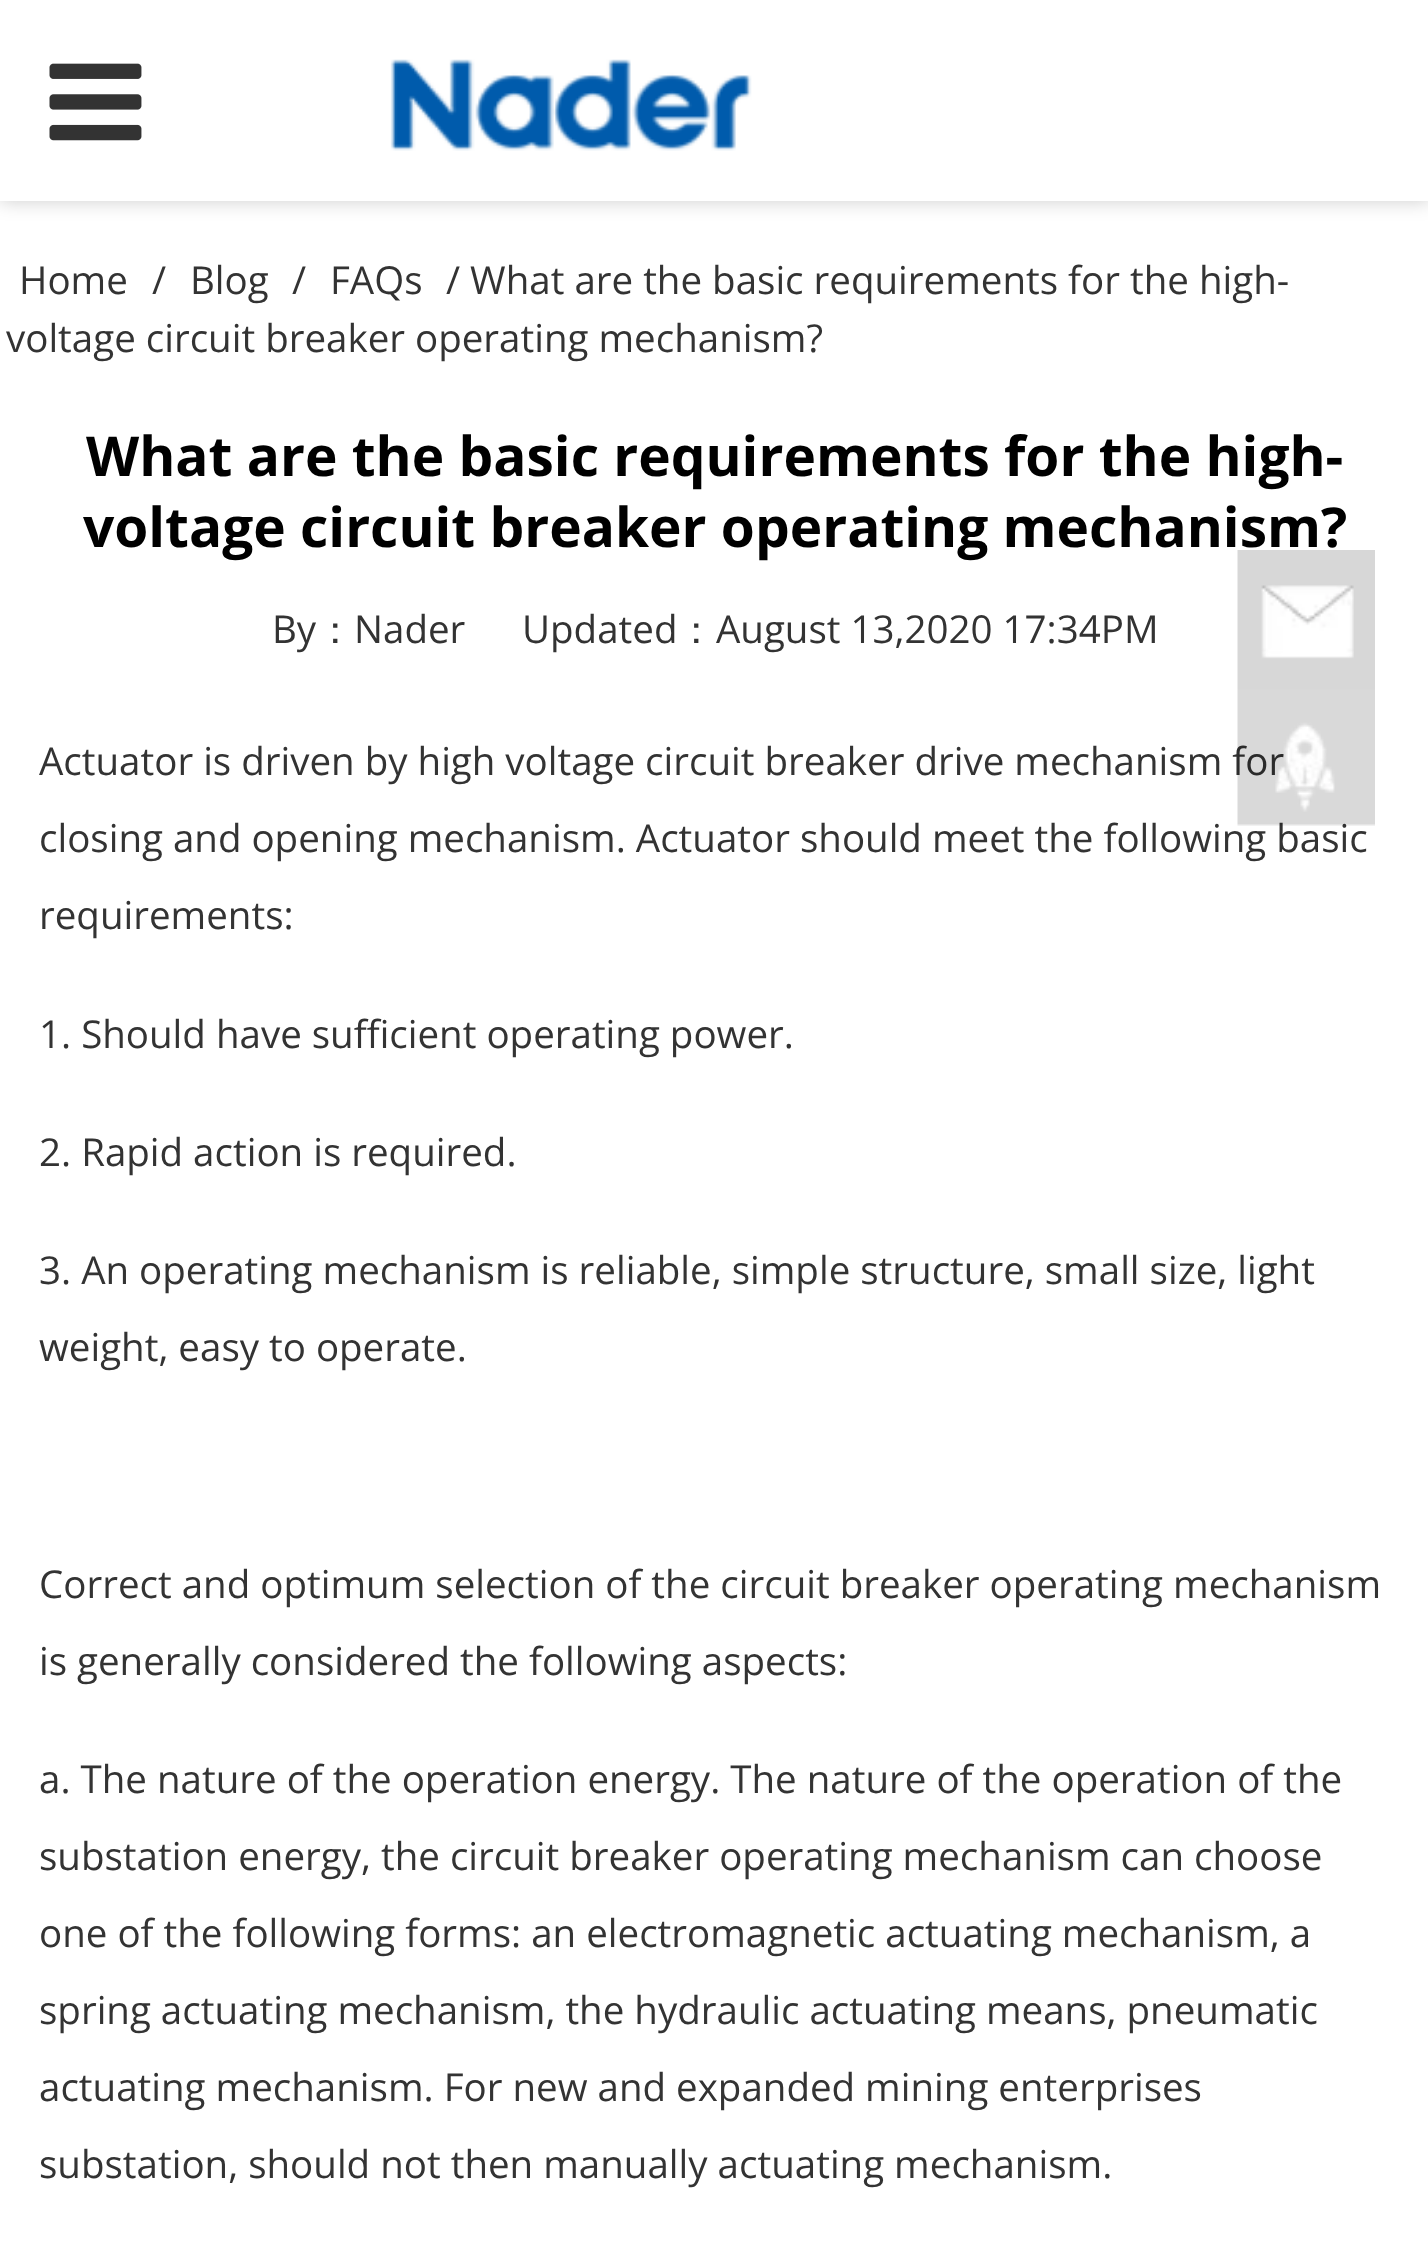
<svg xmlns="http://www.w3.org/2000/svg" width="1428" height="2253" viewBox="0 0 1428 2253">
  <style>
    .t1 { font: 38.5px Open Sans; fill: #333; }
    .t2 { font: bold 55px Open Sans; fill: #000; }
    .t3 { font: 500 38.5px WenQuanYi Zen Hei; fill: #333; }
  </style>
  <rect width="100%" height="100%" fill="#fff"/>
  <rect x="0" y="0" width="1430" height="201" fill="#00000033" filter="blur(9.5px)"/>
  <rect x="0" y="0" width="1428" height="201" fill="#fff"/>
  <image x="49" y="63" width="93" height="78" href="images/1.png"/>
  <image x="390" y="59" width="362" height="92" href="images/2.png"/>
  <text x="19" y="294" class="t1">Home</text>
  <text x="152" y="294" class="t1">/</text>
  <text x="190" y="294" class="t1">Blog</text>
  <text x="292" y="294" class="t1">/</text>
  <text x="330" y="294" class="t1">FAQs</text>
  <text x="446" y="294" class="t1">/ What are the basic requirements for the high-</text>
  <text x="6" y="352" class="t1">voltage circuit breaker operating mechanism?</text>
  <text x="86" y="476" class="t2">What are the basic requirements for the high-</text>
  <text x="83" y="547" class="t2">voltage circuit breaker operating mechanism?</text>
  <text x="272" y="643" class="t1">By</text>
  <text x="316" y="643" class="t3">：</text>
  <text x="354" y="643" class="t1">Nader</text>
  <text x="522" y="643" class="t1">Updated</text>
  <text x="677" y="643" class="t3">：</text>
  <text x="716" y="643" class="t1">August 13,2020 17:34PM</text>
  <text x="39" y="775" class="t1">Actuator is driven by high voltage circuit breaker drive mechanism for</text>
  <text x="39" y="852" class="t1">closing and opening mechanism. Actuator should meet the following basic</text>
  <text x="39" y="929" class="t1">requirements:</text>
  <text x="39" y="1048" class="t1">1. Should have sufficient operating power.</text>
  <text x="39" y="1166" class="t1">2. Rapid action is required.</text>
  <text x="39" y="1284" class="t1">3. An operating mechanism is reliable, simple structure, small size, light</text>
  <text x="39" y="1361" class="t1">weight, easy to operate.</text>
  <text x="39" y="1598" class="t1">Correct and optimum selection of the circuit breaker operating mechanism</text>
  <text x="39" y="1675" class="t1">is generally considered the following aspects:</text>
  <text x="39" y="1793" class="t1">a. The nature of the operation energy. The nature of the operation of the</text>
  <text x="39" y="1870" class="t1">substation energy, the circuit breaker operating mechanism can choose</text>
  <text x="39" y="1947" class="t1">one of the following forms: an electromagnetic actuating mechanism, a</text>
  <text x="39" y="2024" class="t1">spring actuating mechanism, the hydraulic actuating means, pneumatic</text>
  <text x="39" y="2101" class="t1">actuating mechanism. For new and expanded mining enterprises</text>
  <text x="39" y="2178" class="t1">substation, should not then manually actuating mechanism.</text>
  <image x="1237" y="550" width="138" height="276" href="images/3.png"/>
</svg>
